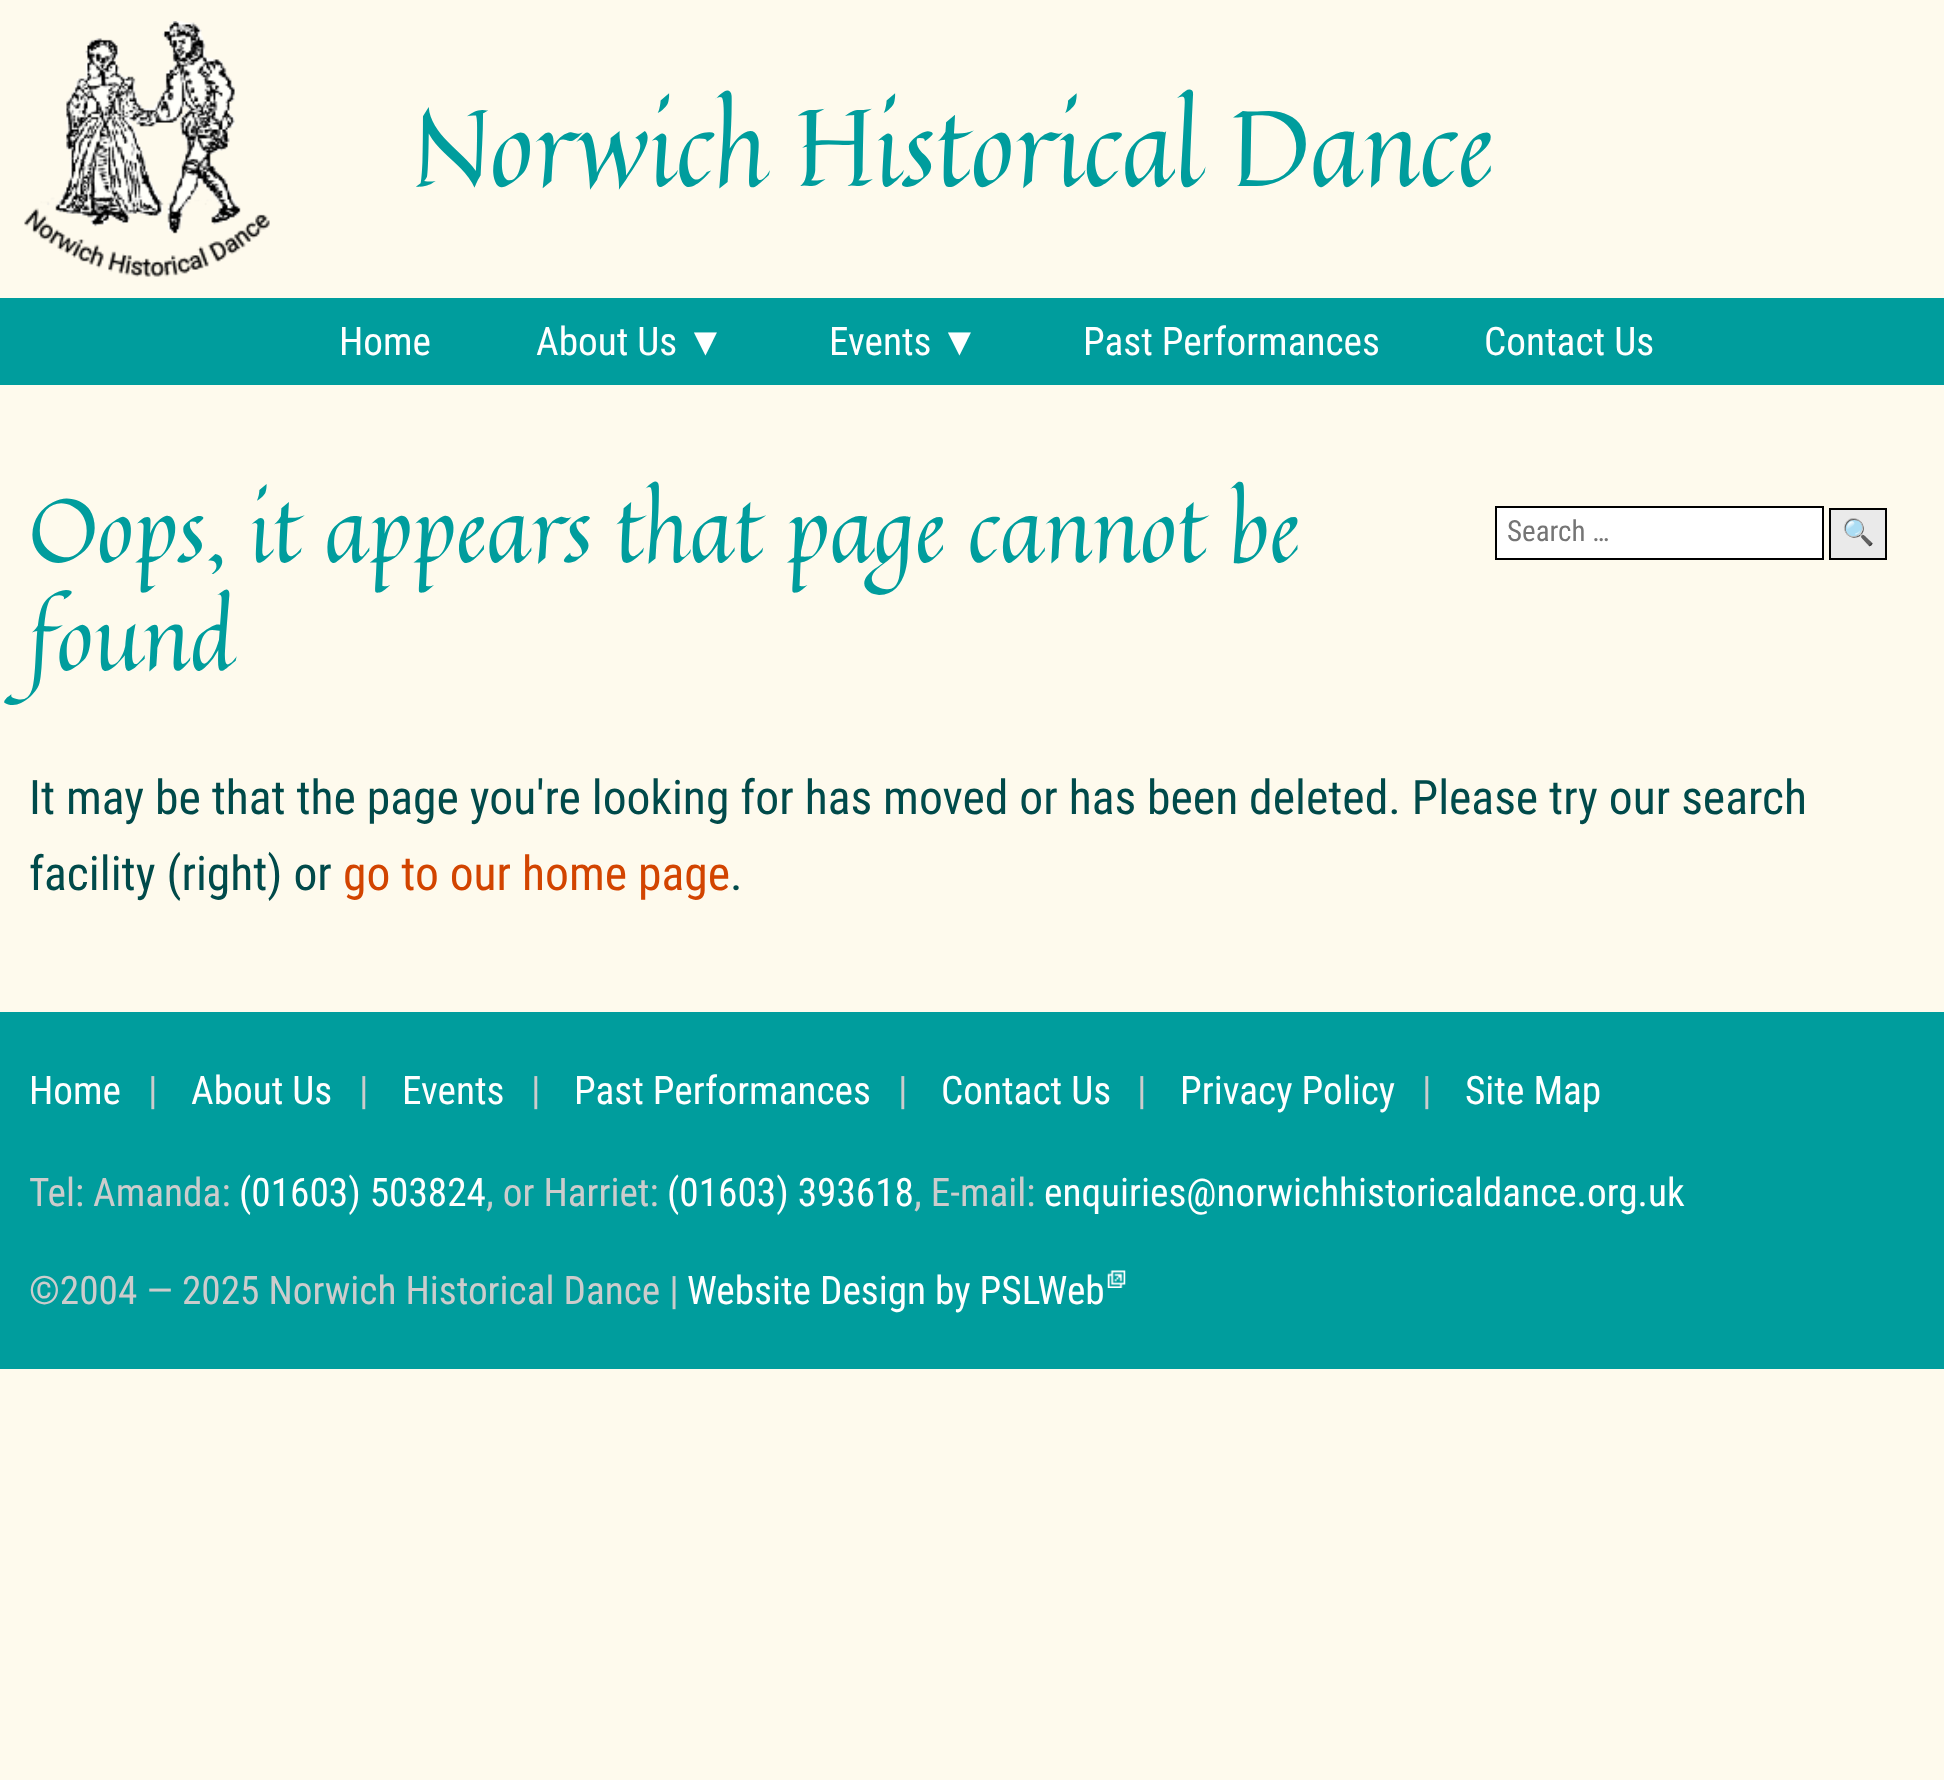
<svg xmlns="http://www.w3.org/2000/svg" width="1944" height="1780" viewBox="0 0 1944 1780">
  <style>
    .t1 { font: 106.4px Quintessential; fill: #009d9d; }
    .t2 { font: 39.25px Roboto Condensed; fill: #fff; }
    .t3 { font: 39.25px Liberation Sans; fill: #fff; }
    .t4 { font: 89.6px Quintessential; fill: #009d9d; }
    .t5 { font: 29px Roboto Condensed; fill: #757575; }
    .t6 { font: bold 26px Noto Color Emoji; fill: #000; }
    .t7 { font: 47.6px Roboto Condensed; fill: #004a4a; }
    .t8 { font: 47.6px Roboto Condensed; fill: #d24400; }
    .t9 { font: 39.25px Roboto Condensed; fill: #ccc; }
  </style>
  <rect width="100%" height="100%" fill="#fefaed"/>
  <image x="24" y="21" width="246" height="256" href="images/1.png"/>
  <text x="412" y="186" class="t1">Norwich Historical Dance</text>
  <rect x="0" y="298" width="1944" height="87" fill="#009d9d"/>
  <text x="339" y="355" class="t2">Home</text>
  <text x="536" y="355" class="t2">About Us</text>
  <text x="686" y="355" class="t3">▼</text>
  <text x="829" y="355" class="t2">Events</text>
  <text x="940" y="355" class="t3">▼</text>
  <text x="1083" y="355" class="t2">Past Performances</text>
  <text x="1484" y="355" class="t2">Contact Us</text>
  <text x="29" y="562" class="t4">Oops, it appears that page cannot be</text>
  <text x="29" y="670" class="t4">found</text>
  <rect x="1496" y="507" width="327" height="52" fill="#fff" stroke="#000" stroke-width="2"/>
  <text x="1507" y="541" class="t5">Search …</text>
  <rect x="1830" y="509" width="56" height="50" fill="#eaeaea" stroke="#000" stroke-width="2"/>
  <text x="1842" y="541" class="t6">🔍</text>
  <text x="29" y="814" class="t7">It may be that the page you're looking for has moved or has been deleted. Please try our search</text>
  <text x="29" y="890" class="t7">facility (right) or</text>
  <text x="343" y="890" class="t8">go to our home page</text>
  <text x="730" y="890" class="t7">.</text>
  <rect x="0" y="1012" width="1944" height="357" fill="#009d9d"/>
  <text x="29" y="1104" class="t2">Home</text>
  <text x="148" y="1104" class="t9">|</text>
  <text x="191" y="1104" class="t2">About Us</text>
  <text x="359" y="1104" class="t9">|</text>
  <text x="402" y="1104" class="t2">Events</text>
  <text x="531" y="1104" class="t9">|</text>
  <text x="574" y="1104" class="t2">Past Performances</text>
  <text x="898" y="1104" class="t9">|</text>
  <text x="941" y="1104" class="t2">Contact Us</text>
  <text x="1137" y="1104" class="t9">|</text>
  <text x="1180" y="1104" class="t2">Privacy Policy</text>
  <text x="1422" y="1104" class="t9">|</text>
  <text x="1465" y="1104" class="t2">Site Map</text>
  <text x="29" y="1206" class="t9">Tel: Amanda:</text>
  <text x="239" y="1206" class="t2">(01603) 503824</text>
  <text x="486" y="1206" class="t9">, or Harriet:</text>
  <text x="667" y="1206" class="t2">(01603) 393618</text>
  <text x="914" y="1206" class="t9">, E-mail:</text>
  <text x="1044" y="1206" class="t2">enquiries@norwichhistoricaldance.org.uk</text>
  <text x="29" y="1304" class="t9">©2004 — 2025 Norwich Historical Dance |</text>
  <text x="687" y="1304" class="t2">Website Design by PSLWeb</text>
  <image x="1107" y="1270" width="19" height="18" href="images/2.png"/>
</svg>
